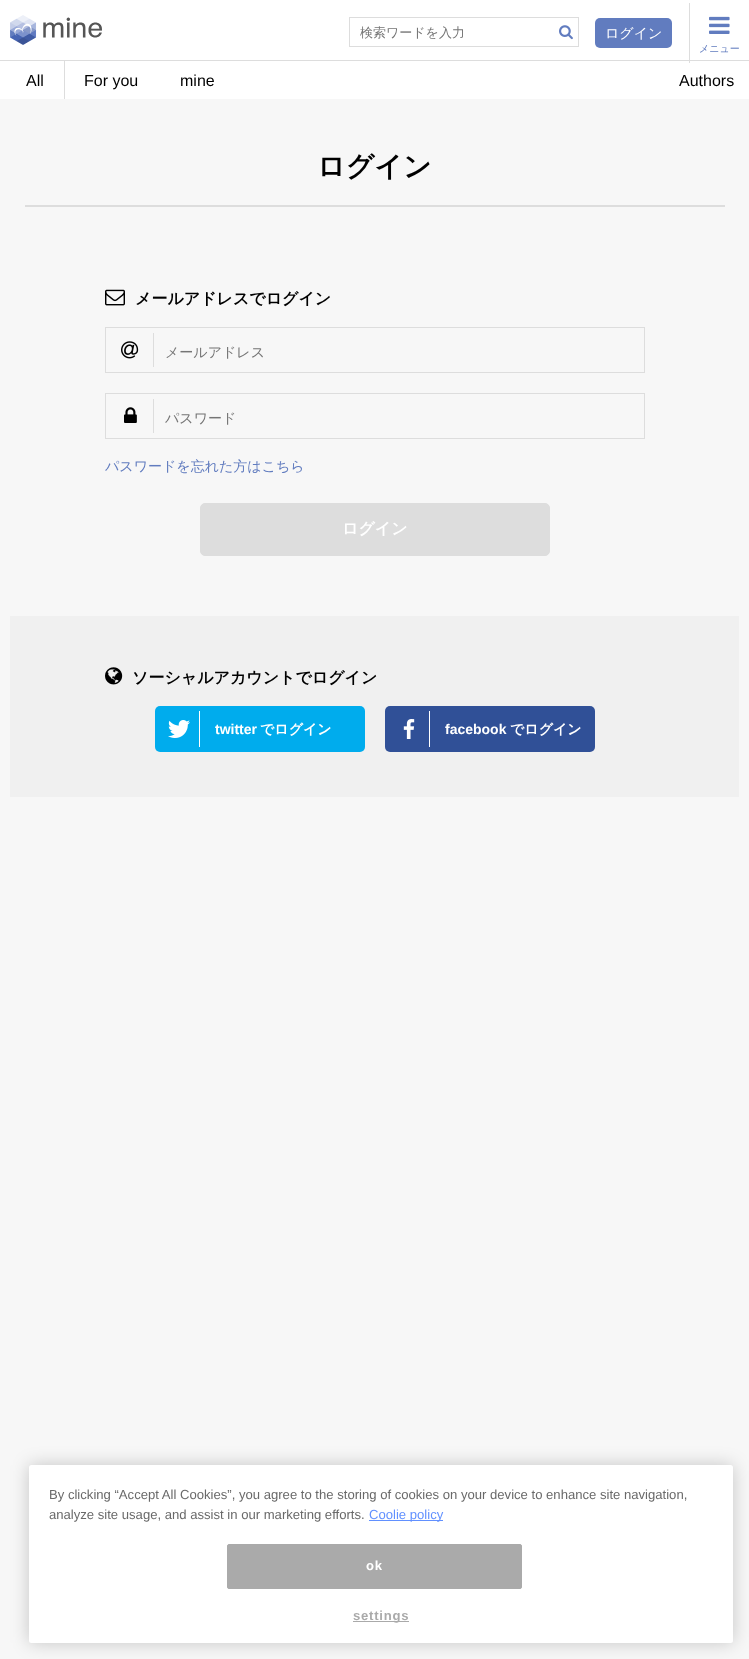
<svg xmlns="http://www.w3.org/2000/svg" width="749" height="1659" viewBox="0 0 749 1659">
  <style>
    .t1 { font: 500 13px WenQuanYi Zen Hei; fill: #757575; }
    .t2 { font: 500 14px WenQuanYi Zen Hei; fill: #fff; }
    .t3 { font: 500 10px WenQuanYi Zen Hei; fill: #617cbf; }
    .t4 { font: 16px Liberation Sans; fill: #000; }
    .t5 { font: bold 28px WenQuanYi Zen Hei; fill: #000; }
    .t6 { font: bold 16px WenQuanYi Zen Hei; fill: #000; }
    .t7 { font: 500 14px WenQuanYi Zen Hei; fill: #757575; }
    .t8 { font: 500 14px WenQuanYi Zen Hei; fill: #617cbf; }
    .t9 { font: bold 16px WenQuanYi Zen Hei; fill: #fff; }
    .t10 { font: bold 14px Liberation Sans; fill: #fff; }
    .t11 { font: bold 14px WenQuanYi Zen Hei; fill: #fff; }
    .t12 { font: 13.1px Liberation Sans; fill: #696969; }
    .t13 { font: 13.1px Liberation Sans; fill: #6190ff; }
    .t14 { font: bold 13.1px Liberation Sans; letter-spacing: 0.75px; fill: #fff; }
    .t15 { font: bold 13.1px Liberation Sans; letter-spacing: 0.75px; fill: #aaa; }
  </style>
  <rect width="100%" height="100%" fill="#f7f7f7"/>
  <rect x="0" y="0" width="749" height="99" fill="#fff"/>
  <image x="10" y="15" width="92" height="30" href="images/1.png"/>
  <rect x="349.5" y="17.5" width="229" height="29" fill="none" stroke="#ddd"/>
  <text x="360" y="37" class="t1">検索ワードを入力</text>
  <image x="559" y="25" width="14" height="15" href="images/2.png"/>
  <rect x="595" y="18" width="77" height="30" rx="5" fill="#617cbf"/>
  <text x="605" y="38" class="t2">ログイン</text>
  <rect x="689" y="3" width="1" height="60" fill="#ddd"/>
  <image x="709" y="16" width="21" height="18" href="images/3.png"/>
  <text x="699" y="52" class="t3">メニュー</text>
  <rect x="0" y="60" width="749" height="1" fill="#ddd"/>
  <rect x="64" y="61" width="1" height="38" fill="#ddd"/>
  <text x="26" y="86" class="t4">All</text>
  <text x="84" y="86" class="t4">For you</text>
  <text x="180" y="86" class="t4">mine</text>
  <text x="679" y="86" class="t4">Authors</text>
  <rect x="25" y="205" width="700" height="2" fill="#ddd"/>
  <text x="317" y="176" class="t5">ログイン</text>
  <image x="105" y="289" width="20" height="17" href="images/4.png"/>
  <text x="135" y="304" class="t6">メールアドレスでログイン</text>
  <rect x="105.5" y="327.5" width="539" height="45" fill="none" stroke="#ddd"/>
  <rect x="153" y="333" width="1" height="34" fill="#ddd"/>
  <image x="121" y="341" width="18" height="18" href="images/5.png"/>
  <text x="165" y="357" class="t7">メールアドレス</text>
  <rect x="105.5" y="393.5" width="539" height="45" fill="none" stroke="#ddd"/>
  <rect x="153" y="399" width="1" height="34" fill="#ddd"/>
  <image x="124" y="407" width="13" height="16" href="images/6.png"/>
  <text x="165" y="423" class="t7">パスワード</text>
  <text x="105" y="471" class="t8">パスワードを忘れた方はこちら</text>
  <rect x="200.5" y="503.5" width="349" height="52" rx="4.5" fill="#ddd" stroke="#ddd"/>
  <text x="342" y="534" class="t9">ログイン</text>
  <rect x="10" y="616" width="729" height="181" fill="#f0f0f0"/>
  <image x="105" y="667" width="18" height="18" href="images/7.png"/>
  <text x="132" y="683" class="t6">ソーシャルアカウントでログイン</text>
  <rect x="155" y="706" width="210" height="46" rx="5" fill="#00aced"/>
  <image x="168" y="720" width="22" height="18" href="images/8.png"/>
  <rect x="199" y="711" width="1" height="36" fill="#fff"/>
  <text x="215" y="734" class="t10">twitter</text>
  <text x="260" y="734" class="t11">でログイン</text>
  <rect x="385" y="706" width="210" height="46" rx="5" fill="#305097"/>
  <image x="403" y="719" width="12" height="20" href="images/9.png"/>
  <rect x="429" y="711" width="1" height="36" fill="#fff"/>
  <text x="445" y="734" class="t10">facebook</text>
  <text x="510" y="734" class="t11">でログイン</text>
  <rect x="29" y="1465" width="704" height="178" rx="2.5" fill="#00000033" filter="blur(9px)"/>
  <rect x="29" y="1465" width="704" height="178" rx="2.5" fill="#fff"/>
  <text x="49" y="1499" class="t12">By clicking “Accept All Cookies”, you agree to the storing of cookies on your device to enhance site navigation,</text>
  <text x="49" y="1519" class="t12">analyze site usage, and assist in our marketing efforts.</text>
  <rect x="369" y="1520" width="74" height="1" fill="#6190ff"/>
  <text x="369" y="1519" class="t13">Coolie policy</text>
  <rect x="227.5" y="1544.5" width="294" height="44" rx="1.5" fill="#aaa" stroke="#aaa"/>
  <text x="366" y="1570" class="t14">ok</text>
  <rect x="353" y="1621" width="56" height="1" fill="#aaa"/>
  <text x="353" y="1620" class="t15">settings</text>
</svg>
